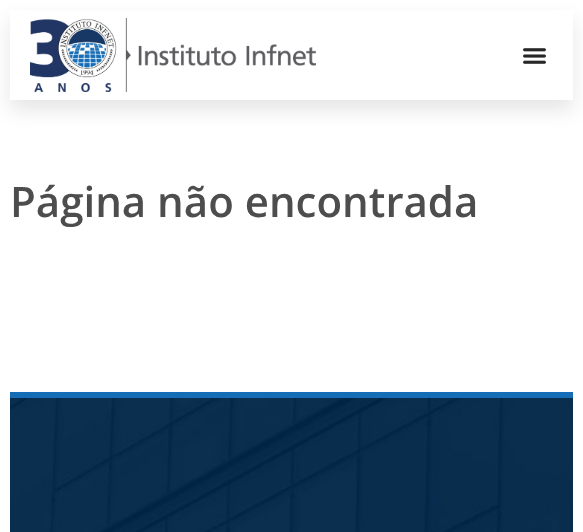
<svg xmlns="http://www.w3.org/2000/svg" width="583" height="532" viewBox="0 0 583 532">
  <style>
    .t1 { font: 600 42px Open Sans; fill: #4d4d4d; }
  </style>
  <defs>
    <clipPath id="clip1"><path d="M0 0H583V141H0ZM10 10H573V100H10Z" clip-rule="evenodd"/></clipPath>
  </defs>
  <rect width="100%" height="100%" fill="#fff"/>
  <g clip-path="url(#clip1)">
    <rect x="10" y="20" width="563" height="90" fill="#0000001a" filter="blur(10px)"/>
  </g>
  <image x="30" y="18" width="286" height="74" href="images/1.png"/>
  <image x="523" y="48" width="23" height="16" href="images/2.png"/>
  <text x="10" y="217" class="t1">Página não encontrada</text>
  <rect x="10" y="398" width="563" height="134" fill="#001c38"/>
  <rect x="10" y="392" width="563" height="6" fill="#166db7"/>
  <image x="10" y="398" width="563" height="134" href="images/3.png"/>
</svg>
